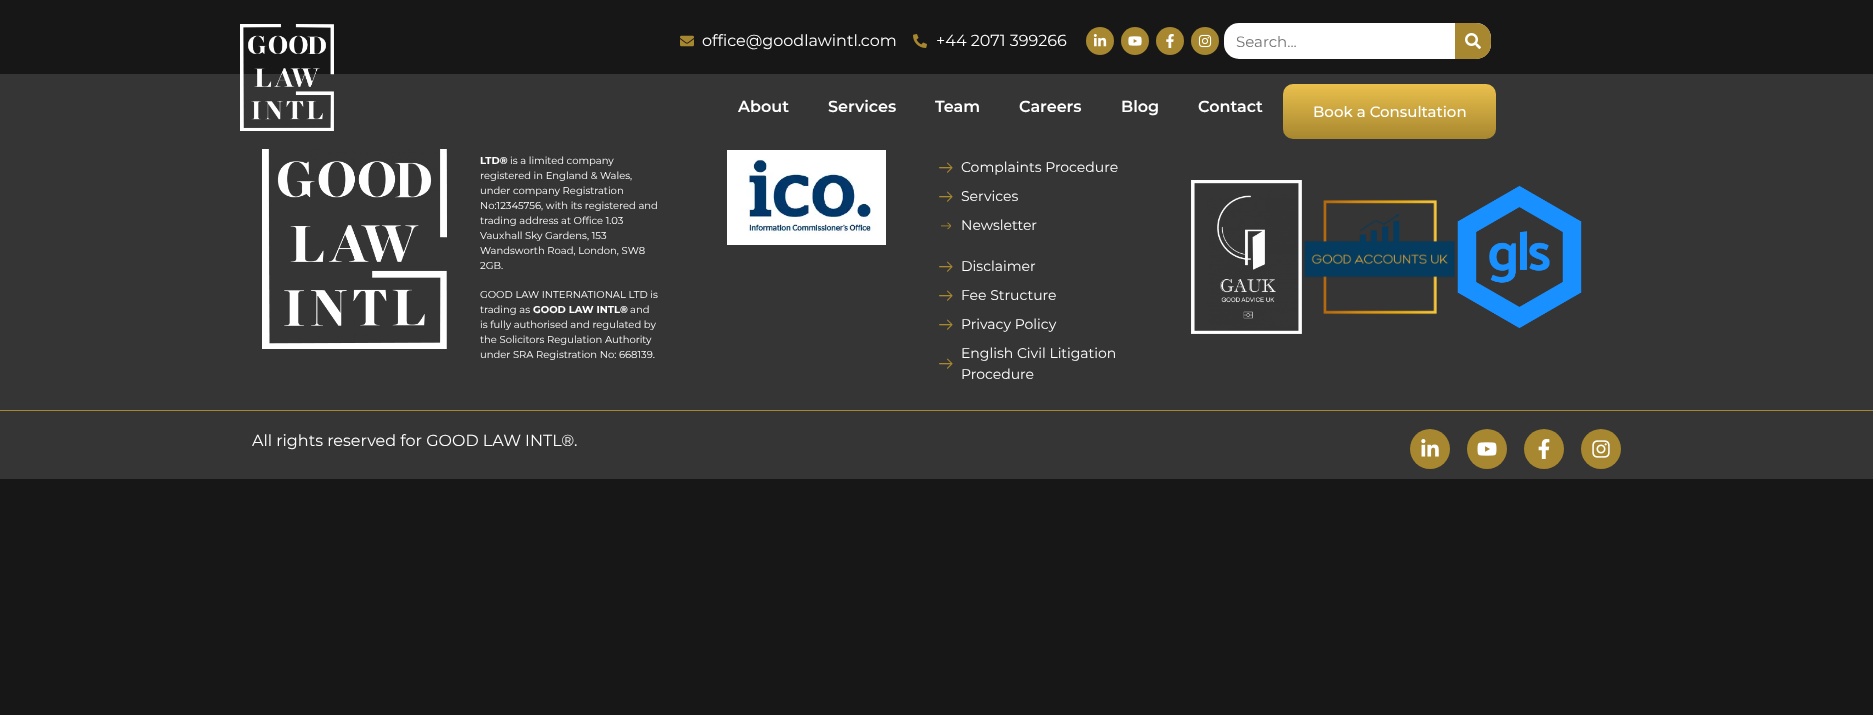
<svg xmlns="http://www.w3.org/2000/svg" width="1873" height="715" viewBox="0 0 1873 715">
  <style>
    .t1 { font: 16px Montserrat; fill: #fff; }
    .t2 { font: 15px Montserrat; fill: #747474; }
    .t3 { font: 600 16px Montserrat; fill: #fff; }
    .t4 { font: 500 15px Montserrat; fill: #fff; }
    .t5 { font: bold 10px Montserrat; fill: #fff; }
    .t6 { font: 10px Montserrat; fill: #fff; }
    .t7 { font: 14px Montserrat; fill: #fff; }
  </style>
  <defs>
    <linearGradient id="g1" gradientUnits="userSpaceOnUse" x1="1390" y1="84" x2="1390" y2="139"><stop offset="0" stop-color="#eac04d"/><stop offset="1" stop-color="#a7872f"/></linearGradient>
  </defs>
  <rect width="100%" height="100%" fill="#171717"/>
  <rect x="0" y="74" width="1873" height="336" fill="#353535"/>
  <image x="240" y="24" width="94" height="107" href="images/1.png"/>
  <image x="680" y="35" width="14" height="12" href="images/2.png"/>
  <text x="702" y="46" class="t1">office@goodlawintl.com</text>
  <image x="913" y="34" width="14" height="14" href="images/3.png"/>
  <text x="936" y="46" class="t1">+44 2071 399266</text>
  <circle cx="1100" cy="41" r="14" fill="#a7872f"/>
  <image x="1093" y="34" width="14" height="13" href="images/4.png"/>
  <circle cx="1135" cy="41" r="14" fill="#a7872f"/>
  <image x="1128" y="36" width="14" height="10" href="images/5.png"/>
  <circle cx="1170" cy="41" r="14" fill="#a7872f"/>
  <image x="1166" y="34" width="8" height="14" href="images/6.png"/>
  <circle cx="1205" cy="41" r="14" fill="#a7872f"/>
  <image x="1198" y="34" width="14" height="14" href="images/7.png"/>
  <rect x="1224" y="23" width="267" height="36" rx="15" fill="#fff"/>
  <text x="1236" y="47" class="t2">Search...</text>
  <path d="M1455 23H1476C1484.5 23 1491 29.5 1491 38V44C1491 52.5 1484.5 59 1476 59H1455Z" fill="#a7872f"/>
  <image x="1465" y="33" width="16" height="16" href="images/8.png"/>
  <text x="738" y="112" class="t3">About</text>
  <text x="828" y="112" class="t3">Services</text>
  <text x="935" y="112" class="t3">Team</text>
  <text x="1019" y="112" class="t3">Careers</text>
  <text x="1121" y="112" class="t3">Blog</text>
  <text x="1198" y="112" class="t3">Contact</text>
  <rect x="1283" y="84" width="213" height="55" rx="10" fill="url(#g1)"/>
  <text x="1313" y="117" class="t4">Book a Consultation</text>
  <image x="262" y="149" width="185" height="200" href="images/9.png"/>
  <text x="480" y="164" class="t5">LTD®</text>
  <text x="510" y="164" class="t6">is a limited company</text>
  <text x="480" y="179" class="t6">registered in England &amp; Wales,</text>
  <text x="480" y="194" class="t6">under company Registration</text>
  <text x="480" y="209" class="t6">No:12345756, with its registered and</text>
  <text x="480" y="224" class="t6">trading address at Office 1.03</text>
  <text x="480" y="239" class="t6">Vauxhall Sky Gardens, 153</text>
  <text x="480" y="254" class="t6">Wandsworth Road, London, SW8</text>
  <text x="480" y="269" class="t6">2GB.</text>
  <text x="480" y="298" class="t6">GOOD LAW INTERNATIONAL LTD is</text>
  <text x="480" y="313" class="t6">trading as</text>
  <text x="533" y="313" class="t5">GOOD LAW INTL®</text>
  <text x="630" y="313" class="t6">and</text>
  <text x="480" y="328" class="t6">is fully authorised and regulated by</text>
  <text x="480" y="343" class="t6">the Solicitors Regulation Authority</text>
  <text x="480" y="358" class="t6">under SRA Registration No: 668139.</text>
  <image x="727" y="150" width="159" height="95" href="images/10.png"/>
  <image x="939" y="162" width="14" height="11" href="images/11.png"/>
  <text x="961" y="172" class="t7">Complaints Procedure</text>
  <image x="939" y="191" width="14" height="11" href="images/11.png"/>
  <text x="961" y="201" class="t7">Services</text>
  <image x="941" y="222" width="10" height="8" href="images/12.png"/>
  <text x="961" y="230" class="t7">Newsletter</text>
  <image x="939" y="261" width="14" height="11" href="images/11.png"/>
  <text x="961" y="271" class="t7">Disclaimer</text>
  <image x="939" y="290" width="14" height="11" href="images/11.png"/>
  <text x="961" y="300" class="t7">Fee Structure</text>
  <image x="939" y="319" width="14" height="11" href="images/11.png"/>
  <text x="961" y="329" class="t7">Privacy Policy</text>
  <image x="939" y="358" width="14" height="11" href="images/11.png"/>
  <text x="961" y="358" class="t7">English Civil Litigation</text>
  <text x="961" y="379" class="t7">Procedure</text>
  <image x="1191" y="180" width="111" height="154" href="images/13.png"/>
  <image x="1304" y="199" width="151" height="116" href="images/14.png"/>
  <image x="1457" y="185" width="125" height="144" href="images/15.png"/>
  <rect x="0" y="411" width="1873" height="68" fill="#353535"/>
  <rect x="0" y="410" width="1873" height="1" fill="#a7872f"/>
  <text x="252" y="446" class="t1">All rights reserved for GOOD LAW INTL®.</text>
  <circle cx="1430" cy="449" r="20" fill="#a7872f"/>
  <image x="1421" y="439" width="18" height="18" href="images/16.png"/>
  <circle cx="1487" cy="449" r="20" fill="#a7872f"/>
  <image x="1477" y="442" width="20" height="14" href="images/17.png"/>
  <circle cx="1544" cy="449" r="20" fill="#a7872f"/>
  <image x="1538" y="439" width="12" height="20" href="images/18.png"/>
  <circle cx="1601" cy="449" r="20" fill="#a7872f"/>
  <image x="1592" y="440" width="18" height="18" href="images/19.png"/>
</svg>
